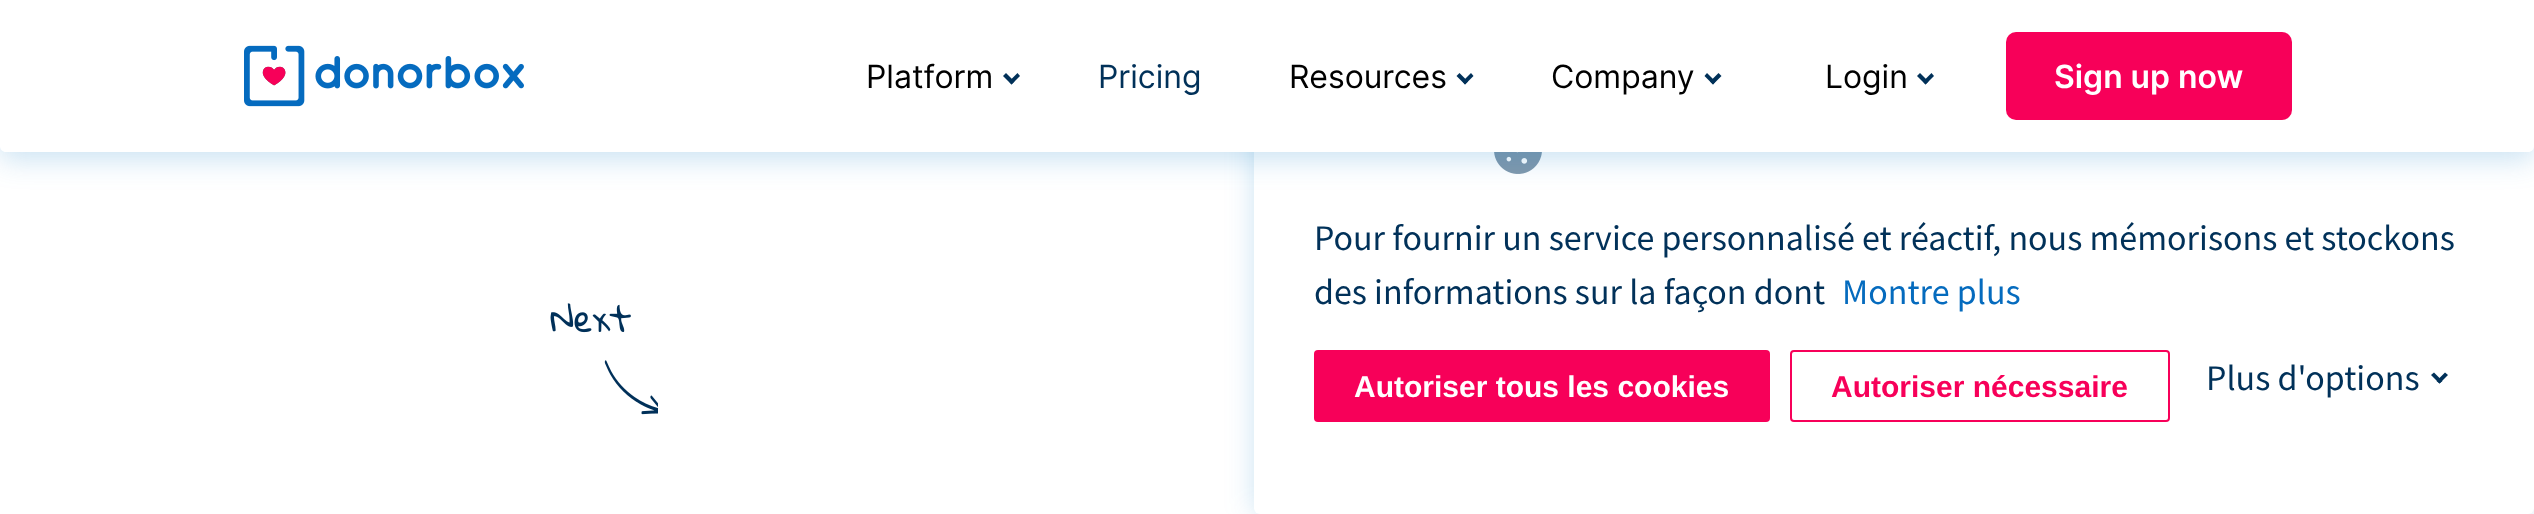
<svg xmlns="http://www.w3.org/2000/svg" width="2534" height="514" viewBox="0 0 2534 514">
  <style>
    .t1 { font: 32px Inter; fill: #000; }
    .t2 { font: 32px Inter; fill: #013159; }
    .t3 { font: 600 32px Inter; fill: #fff; }
    .t4 { font: 36px Source Sans Pro; fill: #013159; }
    .t5 { font: 36px Source Sans Pro; fill: #056bbe; }
    .t6 { font: bold 30px Liberation Sans; fill: #fff; }
    .t7 { font: bold 30px Liberation Sans; fill: #f70059; }
  </style>
  <rect width="100%" height="100%" fill="#fff"/>
  <rect x="1254" y="-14" width="1280" height="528" rx="6" fill="#137ec738" filter="blur(14px)"/>
  <rect x="1254" y="-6" width="1280" height="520" rx="6" fill="#fff"/>
  <image x="1494" y="152" width="48" height="22" href="images/3.png"/>
  <rect x="0" y="8" width="2534" height="152" rx="6" fill="#137ec738" filter="blur(14px)"/>
  <path d="M0 0H2534V146C2534 149.5 2531.5 152 2528 152H6C2.5 152 0 149.5 0 146Z" fill="#fff"/>
  <image x="244" y="45" width="280" height="62" href="images/1.png"/>
  <text x="866" y="88" class="t1">Platform</text>
  <path d="M1017.5 73L1020 76L1011.5 84.5L1009 81.5Z" fill="#013159"/>
  <path d="M1006 73L1014.5 81.5L1011.5 84.5L1003 76Z" fill="#013159"/>
  <text x="1098" y="88" class="t2">Pricing</text>
  <text x="1289" y="88" class="t1">Resources</text>
  <path d="M1471 73L1473.5 76L1465 84.5L1462.5 81.5Z" fill="#013159"/>
  <path d="M1459.5 73L1468 81.5L1465 84.5L1456.5 76Z" fill="#013159"/>
  <text x="1551" y="88" class="t1">Company</text>
  <path d="M1718.5 73L1721.5 76L1713 84.5L1710 81.5Z" fill="#013159"/>
  <path d="M1707 73L1715.5 81.5L1713 84.5L1704.5 76Z" fill="#013159"/>
  <text x="1825" y="88" class="t1">Login</text>
  <path d="M1931.5 73L1934 76L1925.5 84.5L1923 81.5Z" fill="#013159"/>
  <path d="M1920 73L1928.5 81.5L1925.5 84.5L1917 76Z" fill="#013159"/>
  <rect x="2006" y="32" width="286" height="88" rx="10" fill="#f70059"/>
  <text x="2054" y="88" class="t3">Sign up now</text>
  <image x="550" y="303" width="108" height="112" href="images/2.png"/>
  <text x="1314" y="250" class="t4">Pour fournir un service personnalisé et réactif, nous mémorisons et stockons</text>
  <text x="1314" y="304" class="t4">des informations sur la façon dont</text>
  <text x="1842" y="304" class="t5">Montre plus</text>
  <rect x="1314" y="350" width="456" height="72" rx="4" fill="#f70059"/>
  <text x="1354" y="397" class="t6">Autoriser tous les cookies</text>
  <rect x="1791" y="351" width="378" height="70" rx="3" fill="none" stroke="#f70059" stroke-width="2"/>
  <text x="1831" y="397" class="t7">Autoriser nécessaire</text>
  <text x="2206" y="390" class="t4">Plus d'options</text>
  <path d="M2445 372.5L2448 375L2439.5 383.5L2436.5 381Z" fill="#013159"/>
  <path d="M2434 372.5L2442.5 381L2439.5 383.5L2431 375Z" fill="#013159"/>
</svg>
